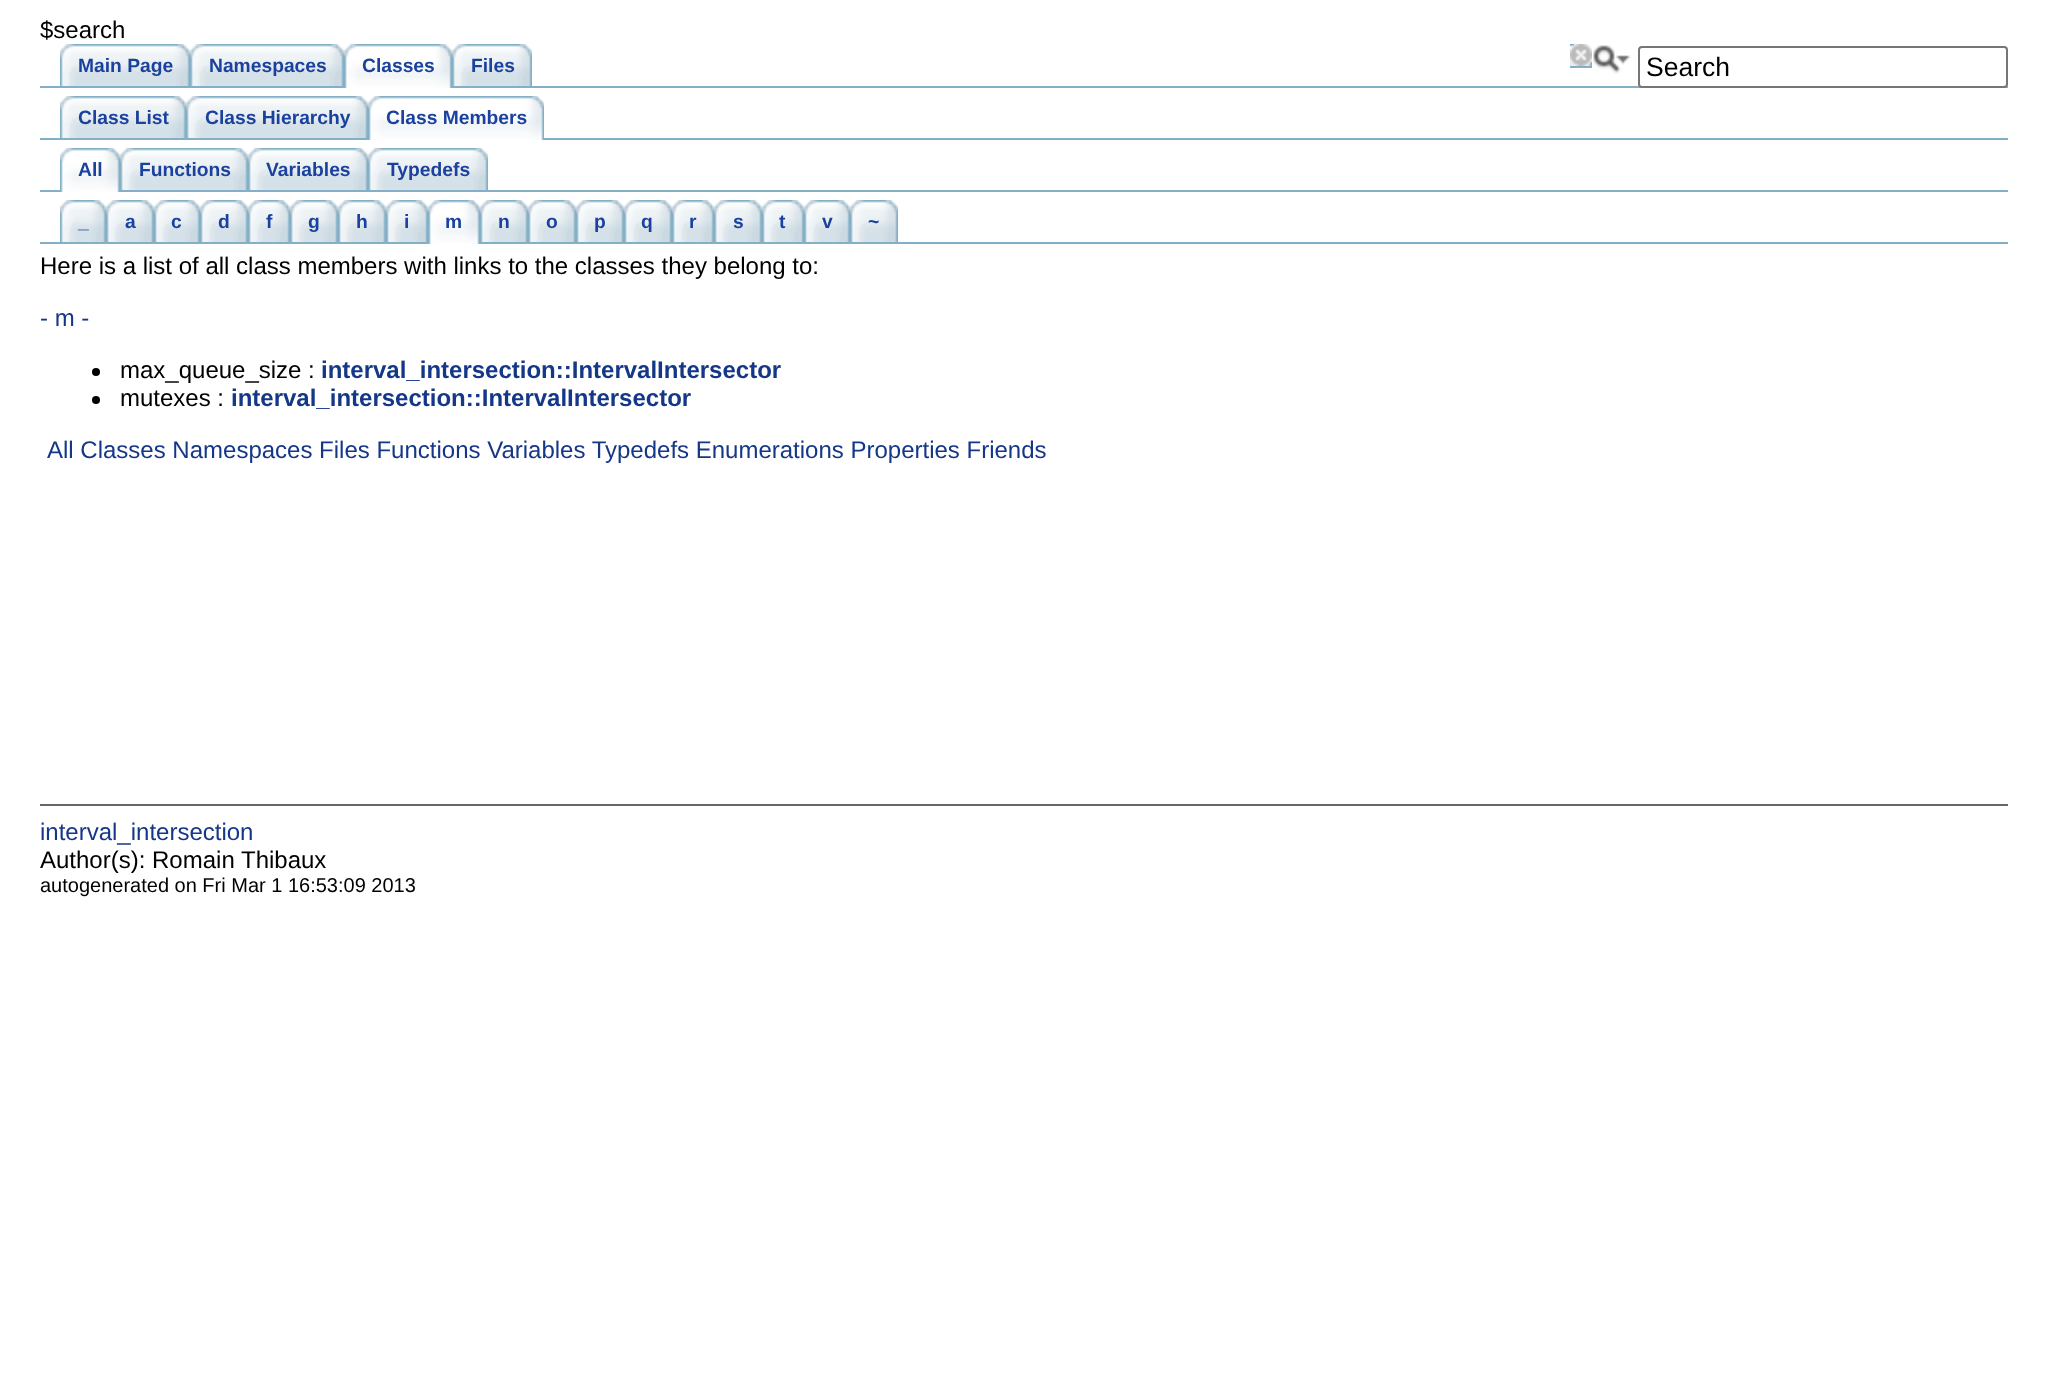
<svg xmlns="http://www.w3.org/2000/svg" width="2048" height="1396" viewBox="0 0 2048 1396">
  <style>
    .t1 { font: 24px Liberation Sans; fill: #000; }
    .t2 { font: bold 19.25px Liberation Sans; fill: #1a419d; }
    .t3 { font: 26.5px Liberation Sans; fill: #000; }
    .t4 { font: 24px Liberation Sans; fill: #153788; }
    .t5 { font: bold 24px Liberation Sans; fill: #153788; }
    .t6 { font: 20px Liberation Sans; fill: #000; }
  </style>
  <rect width="100%" height="100%" fill="#fff"/>
  <text x="40" y="38" class="t1">$search</text>
  <rect x="40" y="86" width="1968" height="2" fill="#84b0c7"/>
  <image x="78" y="44" width="112" height="42" href="images/1.png"/>
  <image x="60" y="44" width="18" height="42" href="images/2.png"/>
  <text x="78" y="72" class="t2">Main Page</text>
  <image x="208" y="44" width="136" height="42" href="images/3.png"/>
  <image x="190" y="44" width="18" height="42" href="images/2.png"/>
  <text x="209" y="72" class="t2">Namespaces</text>
  <image x="357" y="44" width="95" height="44" href="images/4.png"/>
  <image x="344" y="44" width="13" height="44" href="images/5.png"/>
  <text x="362" y="72" class="t2">Classes</text>
  <image x="470" y="44" width="62" height="42" href="images/6.png"/>
  <image x="452" y="44" width="18" height="42" href="images/2.png"/>
  <text x="471" y="72" class="t2">Files</text>
  <image x="1570" y="44" width="22" height="22" href="images/7.png"/>
  <rect x="1570" y="66" width="22" height="2" fill="#84b0c7"/>
  <image x="1570" y="44" width="22" height="22" href="images/8.png"/>
  <image x="1593" y="45" width="38" height="29" href="images/9.png"/>
  <rect x="1639" y="47" width="368" height="40" rx="3" fill="#fff" stroke="#767676" stroke-width="2"/>
  <text x="1646" y="76" class="t3">Search</text>
  <rect x="40" y="138" width="1968" height="2" fill="#84b0c7"/>
  <image x="78" y="96" width="108" height="42" href="images/10.png"/>
  <image x="60" y="96" width="18" height="42" href="images/2.png"/>
  <text x="78" y="124" class="t2">Class List</text>
  <image x="204" y="96" width="164" height="42" href="images/11.png"/>
  <image x="186" y="96" width="18" height="42" href="images/2.png"/>
  <text x="205" y="124" class="t2">Class Hierarchy</text>
  <image x="381" y="96" width="163" height="44" href="images/12.png"/>
  <image x="368" y="96" width="13" height="44" href="images/5.png"/>
  <text x="386" y="124" class="t2">Class Members</text>
  <rect x="40" y="190" width="1968" height="2" fill="#84b0c7"/>
  <image x="73" y="148" width="47" height="44" href="images/13.png"/>
  <image x="60" y="148" width="13" height="44" href="images/5.png"/>
  <text x="78" y="176" class="t2">All</text>
  <image x="138" y="148" width="110" height="42" href="images/14.png"/>
  <image x="120" y="148" width="18" height="42" href="images/2.png"/>
  <text x="139" y="176" class="t2">Functions</text>
  <image x="266" y="148" width="102" height="42" href="images/15.png"/>
  <image x="248" y="148" width="18" height="42" href="images/2.png"/>
  <text x="266" y="176" class="t2">Variables</text>
  <image x="386" y="148" width="102" height="42" href="images/16.png"/>
  <image x="368" y="148" width="18" height="42" href="images/2.png"/>
  <text x="387" y="176" class="t2">Typedefs</text>
  <rect x="40" y="242" width="1968" height="2" fill="#84b0c7"/>
  <image x="124" y="200" width="30" height="42" href="images/17.png"/>
  <image x="106" y="200" width="18" height="42" href="images/2.png"/>
  <text x="125" y="228" class="t2">a</text>
  <image x="172" y="200" width="28" height="42" href="images/18.png"/>
  <image x="154" y="200" width="18" height="42" href="images/2.png"/>
  <text x="171" y="228" class="t2">c</text>
  <image x="218" y="200" width="30" height="42" href="images/19.png"/>
  <image x="200" y="200" width="18" height="42" href="images/2.png"/>
  <text x="218" y="228" class="t2">d</text>
  <image x="266" y="200" width="24" height="42" href="images/20.png"/>
  <image x="248" y="200" width="18" height="42" href="images/2.png"/>
  <text x="266" y="228" class="t2">f</text>
  <image x="308" y="200" width="30" height="42" href="images/19.png"/>
  <image x="290" y="200" width="18" height="42" href="images/2.png"/>
  <text x="308" y="228" class="t2">g</text>
  <image x="356" y="200" width="30" height="42" href="images/19.png"/>
  <image x="338" y="200" width="18" height="42" href="images/2.png"/>
  <text x="356" y="228" class="t2">h</text>
  <image x="404" y="200" width="24" height="42" href="images/21.png"/>
  <image x="386" y="200" width="18" height="42" href="images/2.png"/>
  <text x="404" y="228" class="t2">i</text>
  <image x="441" y="200" width="39" height="44" href="images/22.png"/>
  <image x="428" y="200" width="13" height="44" href="images/5.png"/>
  <text x="445" y="228" class="t2">m</text>
  <image x="498" y="200" width="30" height="42" href="images/19.png"/>
  <image x="480" y="200" width="18" height="42" href="images/2.png"/>
  <text x="498" y="228" class="t2">n</text>
  <image x="546" y="200" width="30" height="42" href="images/19.png"/>
  <image x="528" y="200" width="18" height="42" href="images/2.png"/>
  <text x="546" y="228" class="t2">o</text>
  <image x="594" y="200" width="30" height="42" href="images/19.png"/>
  <image x="576" y="200" width="18" height="42" href="images/2.png"/>
  <text x="594" y="228" class="t2">p</text>
  <image x="642" y="200" width="30" height="42" href="images/19.png"/>
  <image x="624" y="200" width="18" height="42" href="images/2.png"/>
  <text x="641" y="228" class="t2">q</text>
  <image x="690" y="200" width="24" height="42" href="images/23.png"/>
  <image x="672" y="200" width="18" height="42" href="images/2.png"/>
  <text x="689" y="228" class="t2">r</text>
  <image x="732" y="200" width="30" height="42" href="images/17.png"/>
  <image x="714" y="200" width="18" height="42" href="images/2.png"/>
  <text x="733" y="228" class="t2">s</text>
  <image x="780" y="200" width="24" height="42" href="images/20.png"/>
  <image x="762" y="200" width="18" height="42" href="images/2.png"/>
  <text x="779" y="228" class="t2">t</text>
  <image x="822" y="200" width="28" height="42" href="images/18.png"/>
  <image x="804" y="200" width="18" height="42" href="images/2.png"/>
  <text x="822" y="228" class="t2">v</text>
  <image x="868" y="200" width="30" height="42" href="images/24.png"/>
  <image x="850" y="200" width="18" height="42" href="images/2.png"/>
  <text x="868" y="228" class="t2">~</text>
  <image x="78" y="200" width="28" height="42" href="images/18.png"/>
  <image x="60" y="200" width="18" height="42" href="images/2.png"/>
  <text x="78" y="228" class="t2">_</text>
  <text x="40" y="274" class="t1">Here is a list of all class members with links to the classes they belong to:</text>
  <text x="40" y="326" class="t4">- m -</text>
  <circle cx="96" cy="372" r="4" fill="#000"/>
  <text x="120" y="378" class="t1">max_queue_size :</text>
  <text x="321" y="378" class="t5">interval_intersection::IntervalIntersector</text>
  <circle cx="96" cy="400" r="4" fill="#000"/>
  <text x="120" y="406" class="t1">mutexes :</text>
  <text x="231" y="406" class="t5">interval_intersection::IntervalIntersector</text>
  <text x="47" y="458" class="t4">All Classes Namespaces Files Functions Variables Typedefs Enumerations Properties Friends</text>
  <rect x="40" y="804" width="1968" height="2" fill="#666"/>
  <text x="40" y="840" class="t4">interval_intersection</text>
  <text x="40" y="868" class="t1">Author(s): Romain Thibaux</text>
  <text x="40" y="892" class="t6">autogenerated on Fri Mar 1 16:53:09 2013</text>
</svg>
